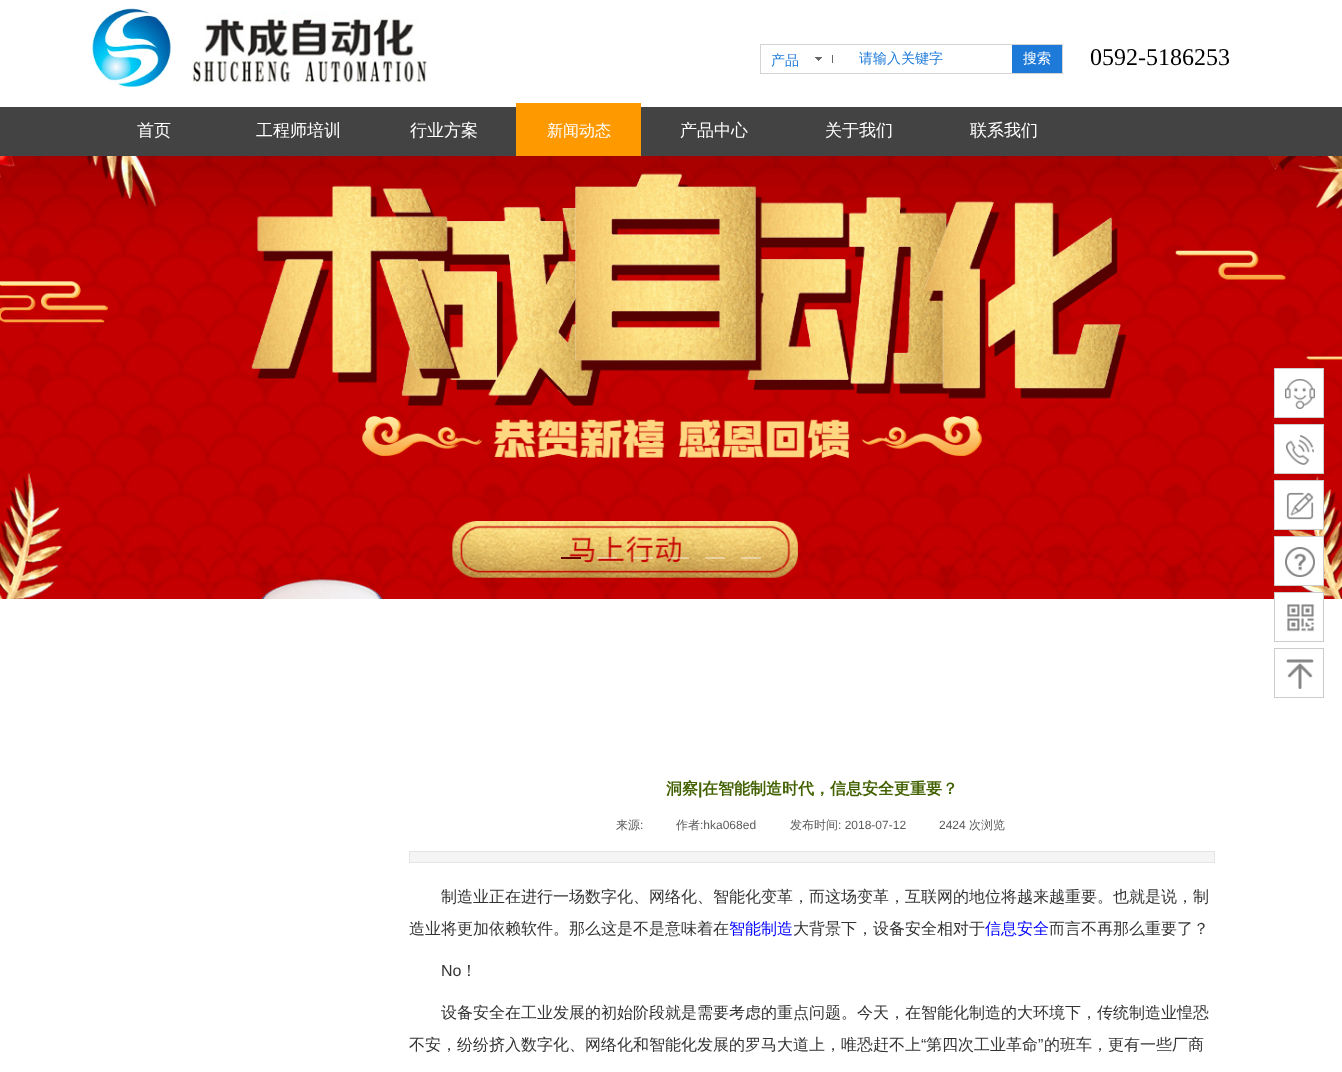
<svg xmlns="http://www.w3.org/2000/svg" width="1342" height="1072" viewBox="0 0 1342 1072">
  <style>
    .t1 { font: 500 14px WenQuanYi Zen Hei; fill: #1d7ad9; }
    .t2 { font: 500 14px WenQuanYi Zen Hei; fill: #fff; }
    .t3 { font: 24px Liberation Serif; fill: #000; }
    .t4 { font: 500 17px WenQuanYi Zen Hei; fill: #fff; }
    .t5 { font: 500 16px WenQuanYi Zen Hei; fill: #fff; }
    .t6 { font: bold 16px WenQuanYi Zen Hei; fill: #426100; }
    .t7 { font: bold 16px Liberation Sans; fill: #426100; }
    .t8 { font: 500 12px WenQuanYi Zen Hei; fill: #5a5a5a; }
    .t9 { font: 12px Liberation Sans; fill: #5a5a5a; }
    .t10 { font: 500 16px WenQuanYi Zen Hei; fill: #333; }
    .t11 { font: 500 16px WenQuanYi Zen Hei; fill: #00f; }
    .t12 { font: 16px Liberation Sans; fill: #333; }
  </style>
  <rect width="100%" height="100%" fill="#fff"/>
  <image x="91" y="7" width="80" height="80" href="images/1.png"/>
  <image x="192" y="11" width="236" height="74" href="images/2.png"/>
  <rect x="760.5" y="44.5" width="302" height="29" fill="none" stroke="#d3d3d3"/>
  <image x="815" y="55" width="18" height="8" href="images/3.png"/>
  <text x="771" y="65" class="t1">产品</text>
  <text x="859" y="63" class="t1">请输入关键字</text>
  <rect x="1012" y="45" width="50" height="28" fill="#1d7ad9"/>
  <text x="1023" y="63" class="t2">搜索</text>
  <text x="1090" y="65" class="t3">0592-5186253</text>
  <rect x="0" y="107" width="1342" height="49" fill="#434343"/>
  <text x="137" y="136" class="t4">首页</text>
  <text x="256" y="136" class="t4">工程师培训</text>
  <text x="410" y="136" class="t4">行业方案</text>
  <rect x="516" y="103" width="125" height="53" fill="#f90"/>
  <text x="547" y="136" class="t5">新闻动态</text>
  <text x="680" y="136" class="t4">产品中心</text>
  <text x="825" y="136" class="t4">关于我们</text>
  <text x="970" y="136" class="t4">联系我们</text>
  <image x="0" y="156" width="1342" height="443" href="images/4.png"/>
  <rect x="561" y="557" width="20" height="2" fill="#600"/>
  <rect x="597" y="557" width="20" height="2" fill="#ffffff66"/>
  <rect x="633" y="557" width="20" height="2" fill="#ffffff66"/>
  <rect x="669" y="557" width="20" height="2" fill="#ffffff66"/>
  <rect x="705" y="557" width="20" height="2" fill="#ffffff66"/>
  <rect x="741" y="557" width="20" height="2" fill="#ffffff66"/>
  <text x="666" y="794" class="t6">洞察</text>
  <text x="698" y="794" class="t7">|</text>
  <text x="702" y="794" class="t6">在智能制造时代，信息安全更重要？</text>
  <text x="616" y="829" class="t8">来源</text>
  <text x="640" y="829" class="t9">:</text>
  <text x="676" y="829" class="t8">作者</text>
  <text x="700" y="829" class="t9">:hka068ed</text>
  <text x="790" y="829" class="t8">发布时间</text>
  <text x="838" y="829" class="t9">: 2018-07-12</text>
  <text x="939" y="829" class="t9">2424</text>
  <text x="969" y="829" class="t8">次浏览</text>
  <rect x="409.5" y="851.5" width="805" height="11" fill="#f5f5f5" stroke="#e5e5e5"/>
  <text x="441" y="902" class="t10">制造业正在进行一场数字化、网络化、智能化变革，而这场变革，互联网的地位将越来越重要。也就是说，制</text>
  <text x="409" y="934" class="t10">造业将更加依赖软件。那么这是不是意味着在</text>
  <text x="729" y="934" class="t11">智能制造</text>
  <text x="793" y="934" class="t10">大背景下，设备安全相对于</text>
  <text x="985" y="934" class="t11">信息安全</text>
  <text x="1049" y="934" class="t10">而言不再那么重要了？</text>
  <text x="441" y="976" class="t12">No</text>
  <text x="461" y="976" class="t10">！</text>
  <text x="441" y="1018" class="t10">设备安全在工业发展的初始阶段就是需要考虑的重点问题。今天，在智能化制造的大环境下，传统制造业惶恐</text>
  <text x="409" y="1050" class="t10">不安，纷纷挤入数字化、网络化和智能化发展的罗马大道上，唯恐赶不上</text>
  <text x="921" y="1050" class="t12">“</text>
  <text x="926" y="1050" class="t10">第四次工业革命</text>
  <text x="1038" y="1050" class="t12">”</text>
  <text x="1044" y="1050" class="t10">的班车，更有一些厂商</text>
  <rect x="1274.5" y="368.5" width="49" height="49" fill="#fff" stroke="#ccc"/>
  <image x="1285" y="379" width="30" height="30" href="images/5.png"/>
  <rect x="1274.5" y="424.5" width="49" height="49" fill="#fff" stroke="#ccc"/>
  <image x="1286" y="435" width="29" height="30" href="images/6.png"/>
  <rect x="1274.5" y="480.5" width="49" height="49" fill="#fff" stroke="#ccc"/>
  <image x="1286" y="492" width="28" height="28" href="images/7.png"/>
  <rect x="1274.5" y="536.5" width="49" height="49" fill="#fff" stroke="#ccc"/>
  <image x="1285" y="547" width="30" height="30" href="images/8.png"/>
  <rect x="1275" y="593" width="48" height="6" fill="#fff"/>
  <rect x="1274.5" y="592.5" width="49" height="49" fill="none" stroke="#ccc"/>
  <image x="1287" y="604" width="28" height="28" href="images/9.png"/>
  <rect x="1274.5" y="648.5" width="49" height="49" fill="none" stroke="#ccc"/>
  <image x="1286" y="659" width="28" height="30" href="images/10.png"/>
</svg>
